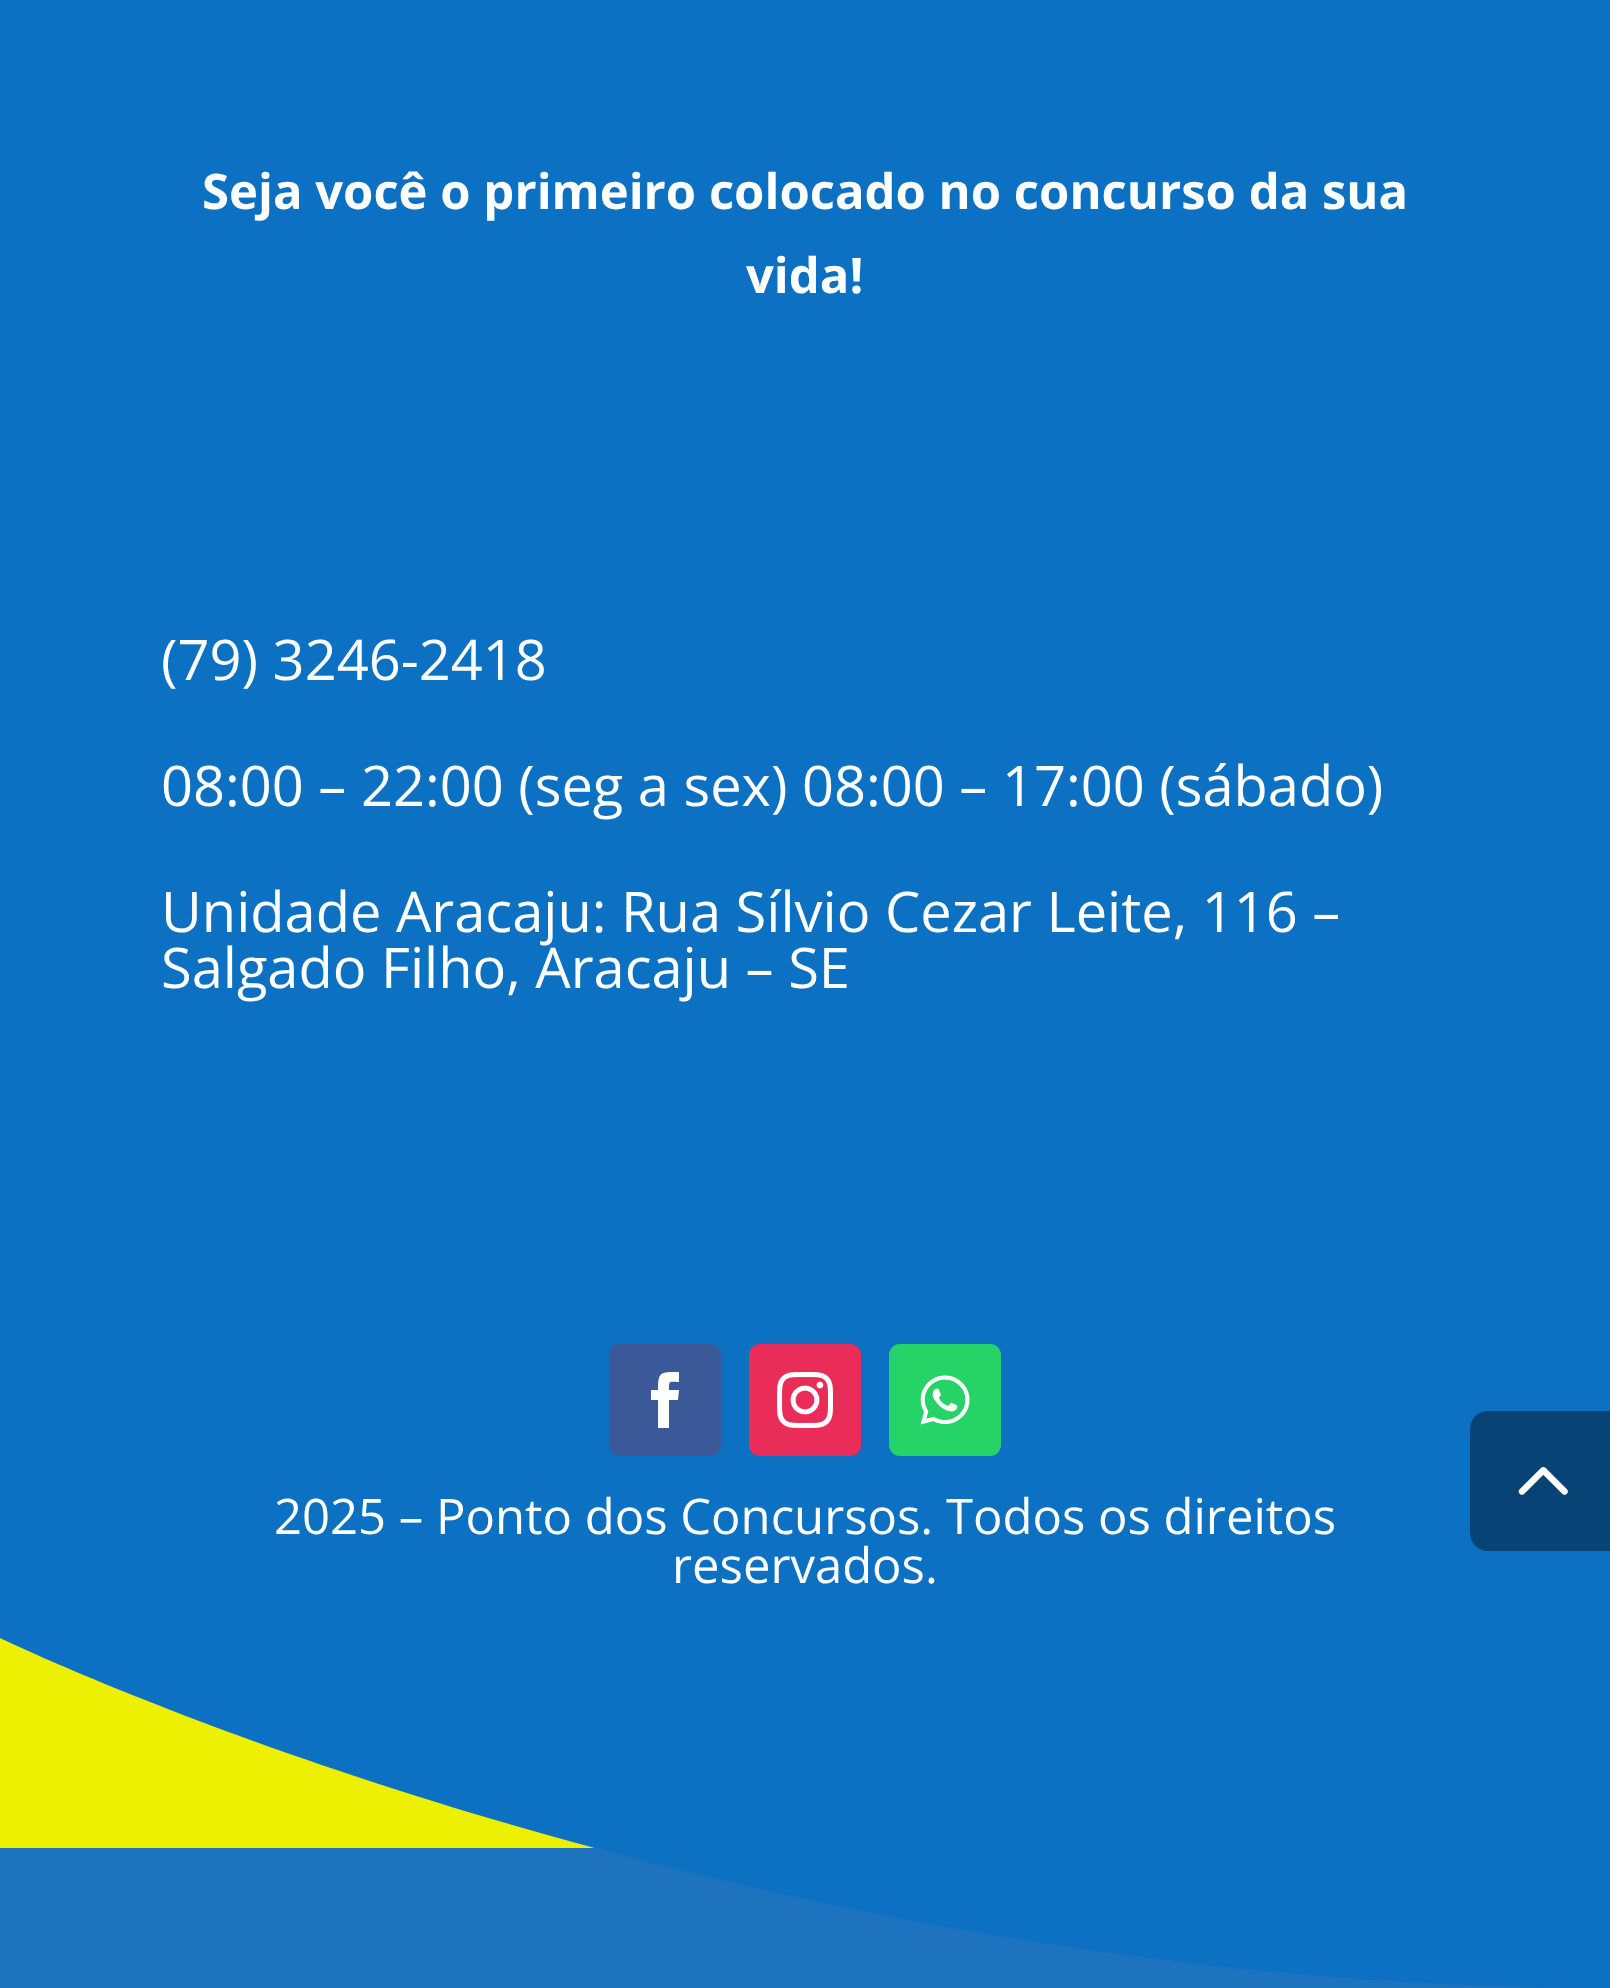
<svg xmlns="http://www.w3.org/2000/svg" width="1610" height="1988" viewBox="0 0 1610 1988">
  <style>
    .t1 { font: bold 49px Open Sans; fill: #fff; }
    .t2 { font: 56px Open Sans; fill: #fff; }
    .t3 { font: 49px Open Sans; fill: #fff; }
  </style>
  <rect width="100%" height="100%" fill="#1e73be"/>
  <rect x="0" y="0" width="1610" height="1638" fill="#0c71c3"/>
  <text x="202" y="209" class="t1">Seja você o primeiro colocado no concurso da sua</text>
  <text x="746" y="293" class="t1">vida!</text>
  <text x="161" y="680" class="t2">(79) 3246-2418</text>
  <text x="161" y="806" class="t2">08:00 – 22:00 (seg a sex) 08:00 – 17:00 (sábado)</text>
  <text x="161" y="932" class="t2">Unidade Aracaju: Rua Sílvio Cezar Leite, 116 –</text>
  <text x="161" y="988" class="t2">Salgado Filho, Aracaju – SE</text>
  <rect x="609" y="1344" width="112" height="112" rx="11" fill="#3b5998"/>
  <path d="M658 1428H669V1400H678L679 1390H669C669 1380 669 1382 679 1382V1372C661 1372 658 1371 658 1390H651V1400H658Z" fill="#fff"/>
  <rect x="749" y="1344" width="112" height="112" rx="11" fill="#ea2c59"/>
  <image x="777" y="1372" width="56" height="56" href="images/1.png"/>
  <rect x="889" y="1344" width="112" height="112" rx="11" fill="#25d366"/>
  <image x="920" y="1375" width="50" height="50" href="images/2.png"/>
  <text x="274" y="1534" class="t3">2025 – Ponto dos Concursos. Todos os direitos</text>
  <text x="672" y="1583" class="t3">reservados.</text>
  <rect x="0" y="1638" width="595" height="210" fill="#edf000"/>
  <path d="M0 1638C0 1638 721 1988 1610 1988V1638Z" fill="#0c71c3"/>
  <path d="M1488 1411H1610V1551H1488C1478 1551 1470 1543 1470 1533V1429C1470 1419 1478 1411 1488 1411Z" fill="#074475"/>
  <image x="1518" y="1467" width="50" height="28" href="images/3.png"/>
</svg>
